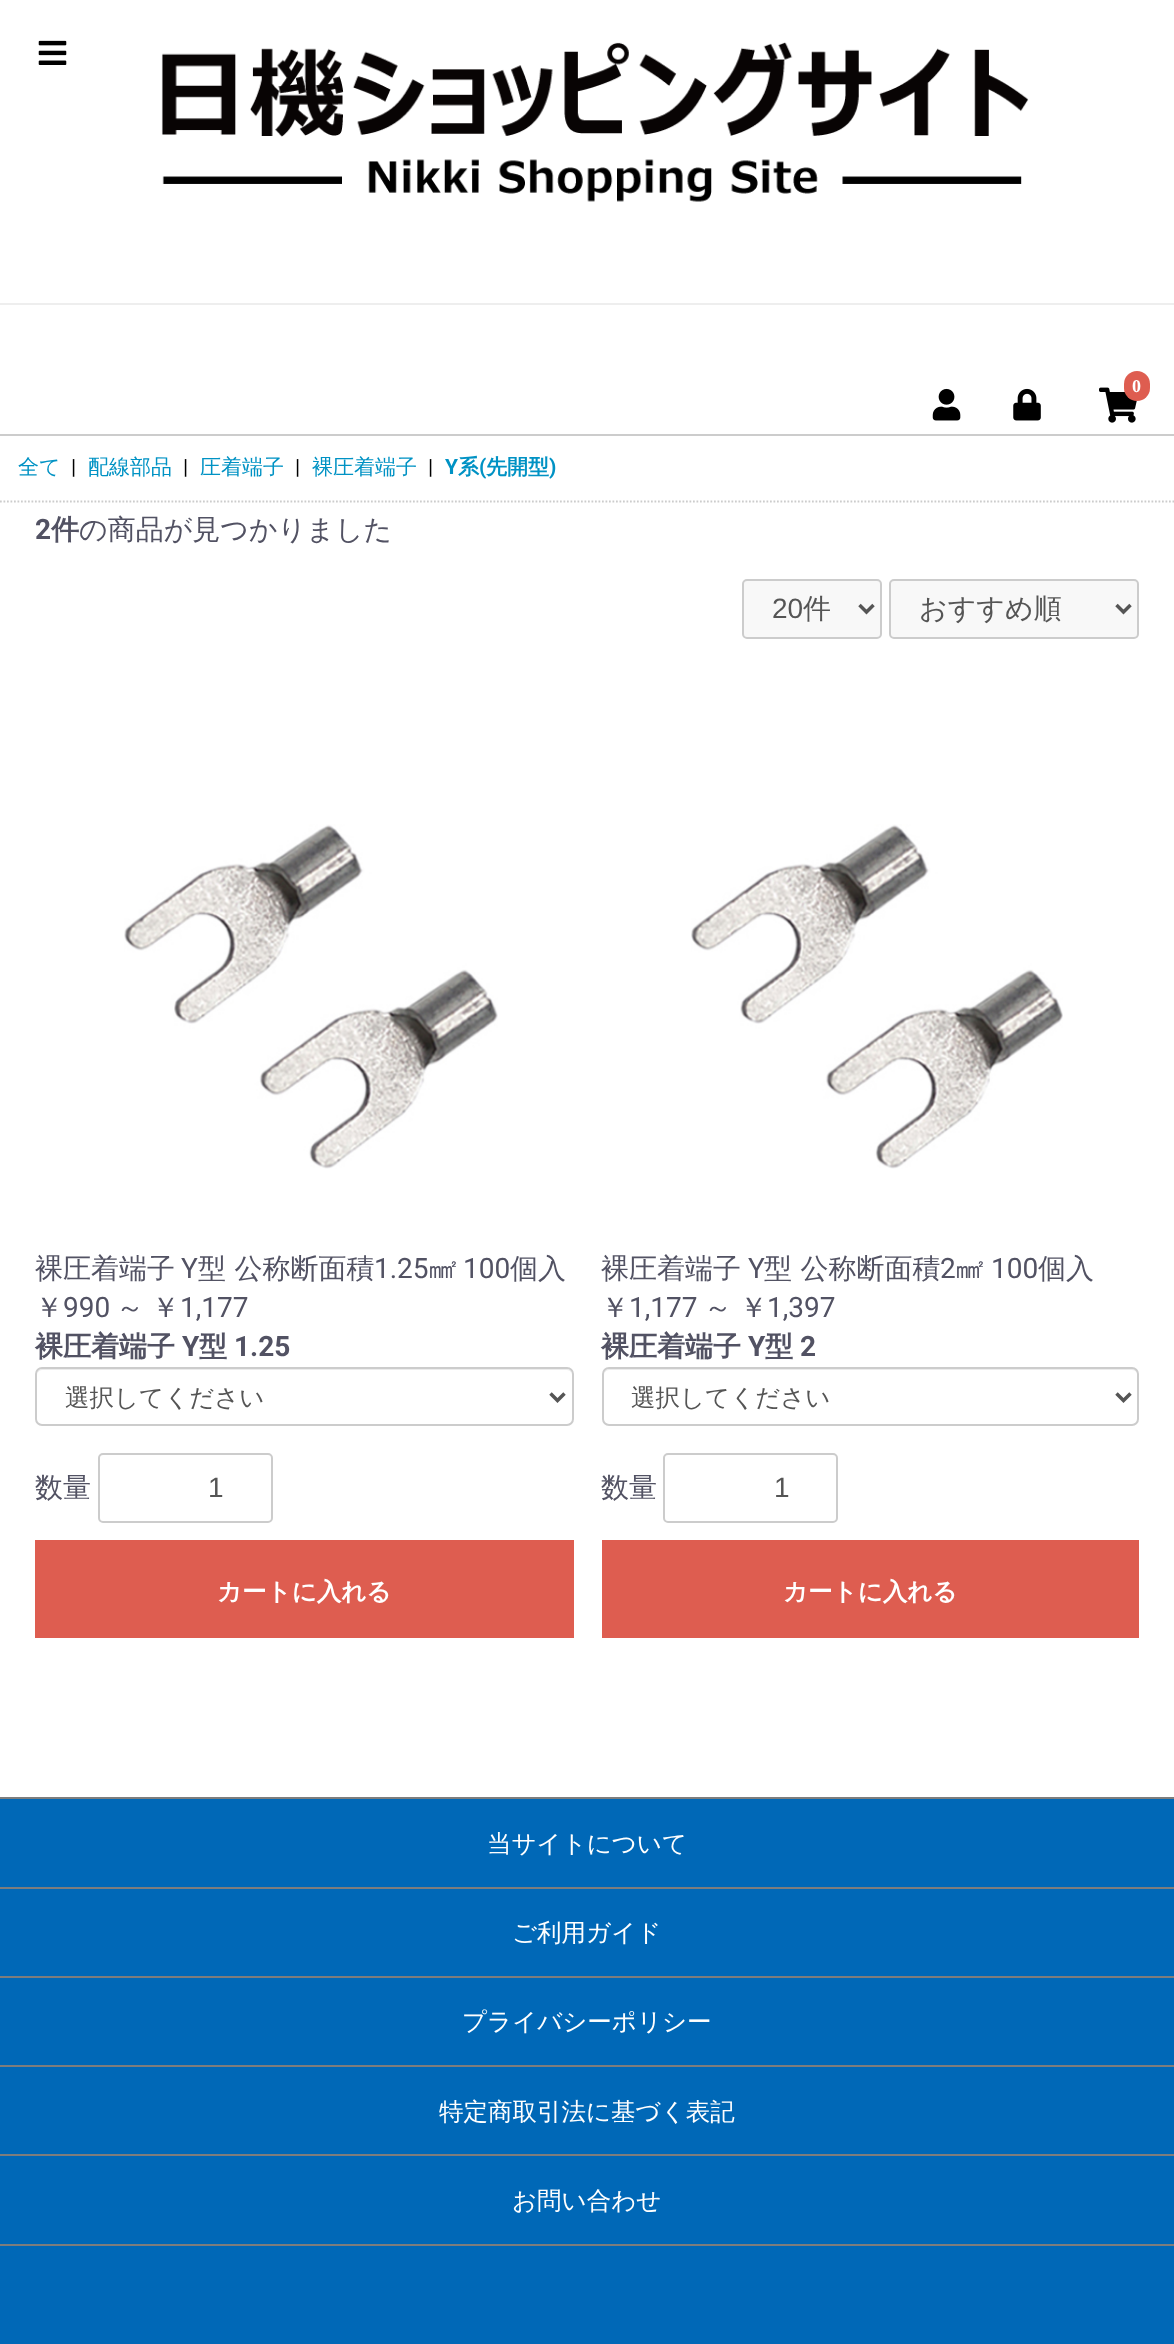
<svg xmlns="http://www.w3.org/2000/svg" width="1174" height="2344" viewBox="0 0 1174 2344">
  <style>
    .t1 { font: bold 18px Liberation Serif; fill: #fff; }
    .t2 { font: 500 21px WenQuanYi Zen Hei; fill: #0092c4; }
    .t3 { font: 21px Roboto; fill: #000; }
    .t4 { font: bold 21px Roboto; fill: #0092c4; }
    .t5 { font: bold 21px WenQuanYi Zen Hei; fill: #0092c4; }
    .t6 { font: bold 28px Roboto; fill: #525263; }
    .t7 { font: bold 28px WenQuanYi Zen Hei; fill: #525263; }
    .t8 { font: 500 28px WenQuanYi Zen Hei; fill: #525263; }
    .t9 { font: 28px Liberation Sans; fill: #555; }
    .t10 { font: 500 28px WenQuanYi Zen Hei; fill: #555; }
    .t11 { font: 28px Roboto; fill: #525263; }
    .t12 { font: 500 24.5px WenQuanYi Zen Hei; fill: #555; }
    .t13 { font: bold 24.5px WenQuanYi Zen Hei; fill: #fff; }
    .t14 { font: 500 24.5px WenQuanYi Zen Hei; fill: #fff; }
  </style>
  <rect width="100%" height="100%" fill="#fff"/>
  <image x="161" y="42" width="868" height="160" href="images/1.png"/>
  <rect x="0" y="303" width="1174" height="2" fill="#eee"/>
  <image x="38" y="40" width="29" height="25" href="images/2.png"/>
  <image x="1099" y="387" width="38" height="36" href="images/3.png"/>
  <rect x="1124" y="371" width="26" height="30" rx="13" fill="#de5d50"/>
  <text x="1132" y="392" class="t1">0</text>
  <image x="932" y="388" width="29" height="33" href="images/4.png"/>
  <image x="1013" y="388" width="28" height="33" href="images/5.png"/>
  <rect x="0" y="434" width="1174" height="2" fill="#ccc"/>
  <path d="M0 501.5H1174" fill="none" stroke="#ccc" stroke-width="1.8" stroke-dasharray="1.75 1.75"/>
  <text x="18" y="474" class="t2">全て</text>
  <text x="71" y="474" class="t3">|</text>
  <text x="88" y="474" class="t2">配線部品</text>
  <text x="183" y="474" class="t3">|</text>
  <text x="200" y="474" class="t2">圧着端子</text>
  <text x="295" y="474" class="t3">|</text>
  <text x="312" y="474" class="t2">裸圧着端子</text>
  <text x="428" y="474" class="t3">|</text>
  <text x="445" y="474" class="t4">Y</text>
  <text x="458" y="474" class="t5">系</text>
  <text x="479" y="474" class="t4">(</text>
  <text x="486" y="474" class="t5">先開型</text>
  <text x="549" y="474" class="t4">)</text>
  <text x="35" y="539" class="t6">2</text>
  <text x="51" y="539" class="t7">件</text>
  <text x="79" y="539" class="t8">の商品が見つかりました</text>
  <rect x="743" y="580" width="138" height="58" rx="4" fill="#f8f8f8" stroke="#ccc" stroke-width="2"/>
  <path d="M859.5 605L866.5 612L873.5 605" fill="none" stroke="#555" stroke-width="3.5"/>
  <text x="772" y="618" class="t9">20</text>
  <text x="803" y="618" class="t10">件</text>
  <rect x="890" y="580" width="248" height="58" rx="4" fill="#f8f8f8" stroke="#ccc" stroke-width="2"/>
  <path d="M1116.5 605L1123.5 612L1130.5 605" fill="none" stroke="#555" stroke-width="3.5"/>
  <text x="919" y="618" class="t10">おすすめ順</text>
  <image x="124" y="824" width="374" height="345" href="images/6.png"/>
  <text x="35" y="1278" class="t8">裸圧着端子</text>
  <text x="181" y="1278" class="t11">Y</text>
  <text x="198" y="1278" class="t8">型 公称断面積</text>
  <text x="374" y="1278" class="t11">1.25</text>
  <text x="429" y="1278" class="t8">㎟</text>
  <text x="463" y="1278" class="t11">100</text>
  <text x="510" y="1278" class="t8">個入</text>
  <text x="35" y="1317" class="t8">￥</text>
  <text x="63" y="1317" class="t11">990</text>
  <text x="116" y="1317" word-spacing="-1" class="t8">～ ￥</text>
  <text x="180" y="1317" class="t11">1,177</text>
  <text x="35" y="1356" class="t7">裸圧着端子</text>
  <text x="182" y="1356" class="t6">Y</text>
  <text x="199" y="1356" class="t7">型</text>
  <text x="234" y="1356" class="t6">1.25</text>
  <path d="M42 1370H567C570 1370 572 1373 572 1376C572 1373 571 1369 567 1369H42C38 1369 37 1373 37 1376C37 1373 39 1370 42 1370Z" fill="#ececec"/>
  <rect x="36" y="1368" width="537" height="57" rx="6" fill="none" stroke="#ccc" stroke-width="2"/>
  <path d="M550.5 1393.5L557.5 1400.5L564.5 1393.5" fill="none" stroke="#555" stroke-width="3.5"/>
  <text x="65" y="1406" class="t12">選択してください</text>
  <text x="35" y="1497" class="t8">数量</text>
  <rect x="99" y="1454" width="173" height="68" rx="4" fill="none" stroke="#ccc" stroke-width="2"/>
  <text x="208" y="1497" class="t9">1</text>
  <rect x="35" y="1540" width="539" height="98" fill="#de5d50"/>
  <text x="217" y="1600" class="t13">カートに入れる</text>
  <image x="691" y="824" width="372" height="345" href="images/7.png"/>
  <text x="601" y="1278" class="t8">裸圧着端子</text>
  <text x="748" y="1278" class="t11">Y</text>
  <text x="764" y="1278" class="t8">型 公称断面積</text>
  <text x="940" y="1278" class="t11">2</text>
  <text x="956" y="1278" class="t8">㎟</text>
  <text x="991" y="1278" class="t11">100</text>
  <text x="1038" y="1278" class="t8">個入</text>
  <text x="601" y="1317" class="t8">￥</text>
  <text x="629" y="1317" class="t11">1,177</text>
  <text x="704" y="1317" word-spacing="-1" class="t8">～ ￥</text>
  <text x="767" y="1317" class="t11">1,397</text>
  <text x="601" y="1356" class="t7">裸圧着端子</text>
  <text x="748" y="1356" class="t6">Y</text>
  <text x="765" y="1356" class="t7">型</text>
  <text x="800" y="1356" class="t6">2</text>
  <path d="M609 1370H1132C1135 1370 1138 1373 1138 1376C1138 1373 1137 1369 1133 1369H609C605 1369 604 1373 604 1376C604 1373 606 1370 609 1370Z" fill="#ececec"/>
  <rect x="603" y="1368" width="535" height="57" rx="6" fill="none" stroke="#ccc" stroke-width="2"/>
  <path d="M1116.5 1393.5L1123.5 1400.5L1130.5 1393.5" fill="none" stroke="#555" stroke-width="3.5"/>
  <text x="631" y="1406" class="t12">選択してください</text>
  <text x="601" y="1497" class="t8">数量</text>
  <rect x="664" y="1454" width="173" height="68" rx="4" fill="none" stroke="#ccc" stroke-width="2"/>
  <text x="774" y="1497" class="t9">1</text>
  <rect x="602" y="1540" width="537" height="98" fill="#de5d50"/>
  <text x="783" y="1600" class="t13">カートに入れる</text>
  <rect x="0" y="1799" width="1174" height="545" fill="#0068b7"/>
  <rect x="0" y="1797" width="1174" height="2" fill="#7d7d7d"/>
  <rect x="0" y="1887" width="1174" height="2" fill="#7d7d7d"/>
  <text x="487" y="1852" class="t14">当サイトについて</text>
  <rect x="0" y="1976" width="1174" height="2" fill="#7d7d7d"/>
  <text x="512" y="1941" class="t14">ご利用ガイド</text>
  <rect x="0" y="2065" width="1174" height="2" fill="#7d7d7d"/>
  <text x="462" y="2030" class="t14">プライバシーポリシー</text>
  <rect x="0" y="2154" width="1174" height="2" fill="#7d7d7d"/>
  <text x="439" y="2120" class="t14">特定商取引法に基づく表記</text>
  <rect x="0" y="2244" width="1174" height="2" fill="#7d7d7d"/>
  <text x="512" y="2209" class="t14">お問い合わせ</text>
</svg>
